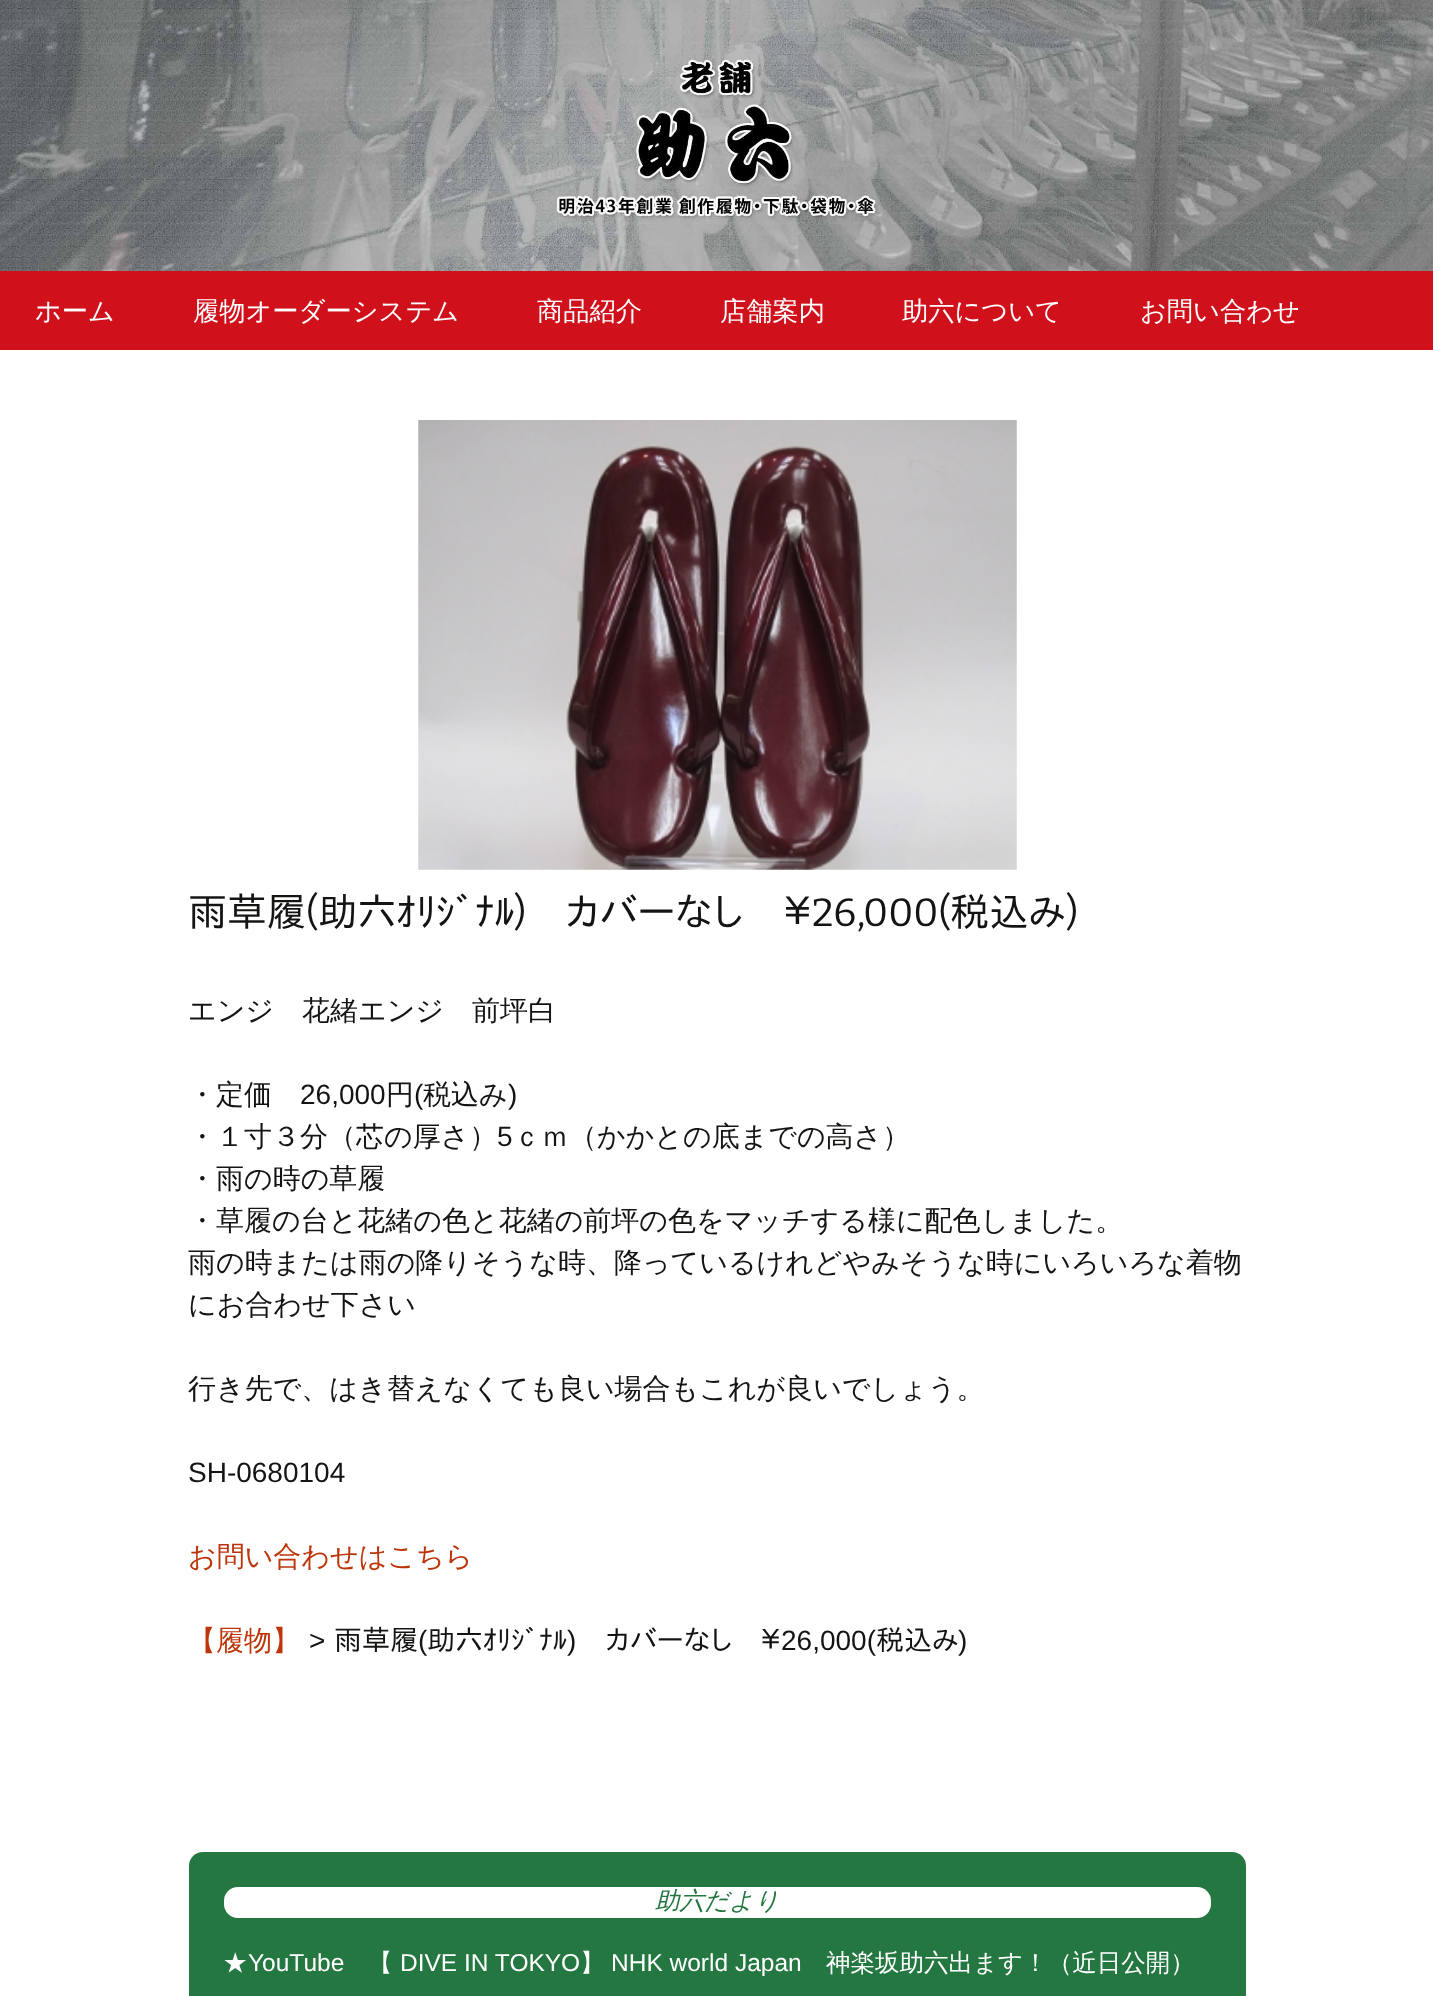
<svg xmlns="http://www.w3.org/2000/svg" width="1433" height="1996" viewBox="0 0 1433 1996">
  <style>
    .t1 { font: 500 26.25px WenQuanYi Zen Hei; fill: #fff; }
    .t2 { font: 39.25px IPAPGothic; fill: #141412; }
    .t3 { font: 39.25px Bitter; fill: #141412; }
    .t4 { font: 500 28px WenQuanYi Zen Hei; fill: #141412; }
    .t5 { font: 28px Liberation Sans; fill: #141412; }
    .t6 { font: 500 28px WenQuanYi Zen Hei; fill: #bc360a; }
    .t7 { font: 28px IPAPGothic; fill: #141412; }
    .t8 { font: italic 500 24.5px WenQuanYi Zen Hei; fill: #247741; }
    .t9 { font: 500 24.5px WenQuanYi Zen Hei; fill: #fff; }
    .t10 { font: 24.5px Liberation Sans; fill: #fff; }
  </style>
  <rect width="100%" height="100%" fill="#fff"/>
  <image x="0" y="0" width="1433" height="271" href="images/1.png"/>
  <rect x="0" y="271" width="1433" height="79" fill="#d0111b"/>
  <text x="35" y="320" class="t1">ホーム</text>
  <text x="193" y="320" class="t1">履物オーダーシステム</text>
  <text x="537" y="320" class="t1">商品紹介</text>
  <text x="720" y="320" class="t1">店舗案内</text>
  <text x="902" y="320" class="t1">助六について</text>
  <text x="1140" y="320" class="t1">お問い合わせ</text>
  <image x="418" y="420" width="599" height="450" href="images/2.png"/>
  <text x="188" y="926" class="t2">雨草履</text>
  <text x="306" y="926" class="t3">(</text>
  <text x="318" y="926" class="t2">助六ｵﾘｼﾞﾅﾙ</text>
  <text x="514" y="926" class="t3">)</text>
  <text x="565" y="926" class="t2">カバーなし　￥</text>
  <text x="812" y="926" class="t3">26,000(</text>
  <text x="950" y="926" class="t2">税込み</text>
  <text x="1066" y="926" class="t3">)</text>
  <text x="188" y="1020" class="t4">エンジ　花緒エンジ　前坪白</text>
  <text x="188" y="1104" class="t4">・定価</text>
  <text x="300" y="1104" class="t5">26,000</text>
  <text x="386" y="1104" class="t4">円</text>
  <text x="414" y="1104" class="t5">(</text>
  <text x="423" y="1104" class="t4">税込み</text>
  <text x="508" y="1104" class="t5">)</text>
  <text x="188" y="1146" class="t4">・１寸３分（芯の厚さ）</text>
  <text x="497" y="1146" class="t5">5</text>
  <text x="513" y="1146" class="t4">ｃｍ（かかとの底までの高さ）</text>
  <text x="188" y="1188" class="t4">・雨の時の草履</text>
  <text x="188" y="1230" class="t4">・草履の台と花緒の色と花緒の前坪の色をマッチする様に配色しました。</text>
  <text x="188" y="1272" class="t4">雨の時または雨の降りそうな時、降っているけれどやみそうな時にいろいろな着物</text>
  <text x="188" y="1314" class="t4">にお合わせ下さい</text>
  <text x="188" y="1398" class="t4">行き先で、はき替えなくても良い場合もこれが良いでしょう。</text>
  <text x="188" y="1482" class="t5">SH-0680104</text>
  <text x="188" y="1566" class="t6">お問い合わせはこちら</text>
  <text x="188" y="1650" class="t6">【履物】</text>
  <text x="309" y="1650" class="t5">&gt;</text>
  <text x="334" y="1650" class="t7">雨草履</text>
  <text x="418" y="1650" class="t5">(</text>
  <text x="427" y="1650" class="t7">助六ｵﾘｼﾞﾅﾙ</text>
  <text x="567" y="1650" class="t5">)</text>
  <text x="605" y="1650" class="t7">カバーなし　￥</text>
  <text x="781" y="1650" class="t5">26,000(</text>
  <text x="876" y="1650" class="t7">税込み</text>
  <text x="958" y="1650" class="t5">)</text>
  <rect x="189" y="1852" width="1057" height="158" rx="14" fill="#247741"/>
  <rect x="224" y="1887" width="987" height="31" rx="14" fill="#fff"/>
  <text x="655" y="1909" class="t8">助六だより</text>
  <text x="223" y="1971" class="t9">★</text>
  <text x="248" y="1971" class="t10">YouTube</text>
  <text x="368" y="1971" class="t9">【</text>
  <text x="400" y="1971" class="t10">DIVE IN TOKYO</text>
  <text x="580" y="1971" class="t9">】</text>
  <text x="611" y="1971" class="t10">NHK world Japan</text>
  <text x="826" y="1971" class="t9">神楽坂助六出ます！（近日公開）</text>
</svg>
